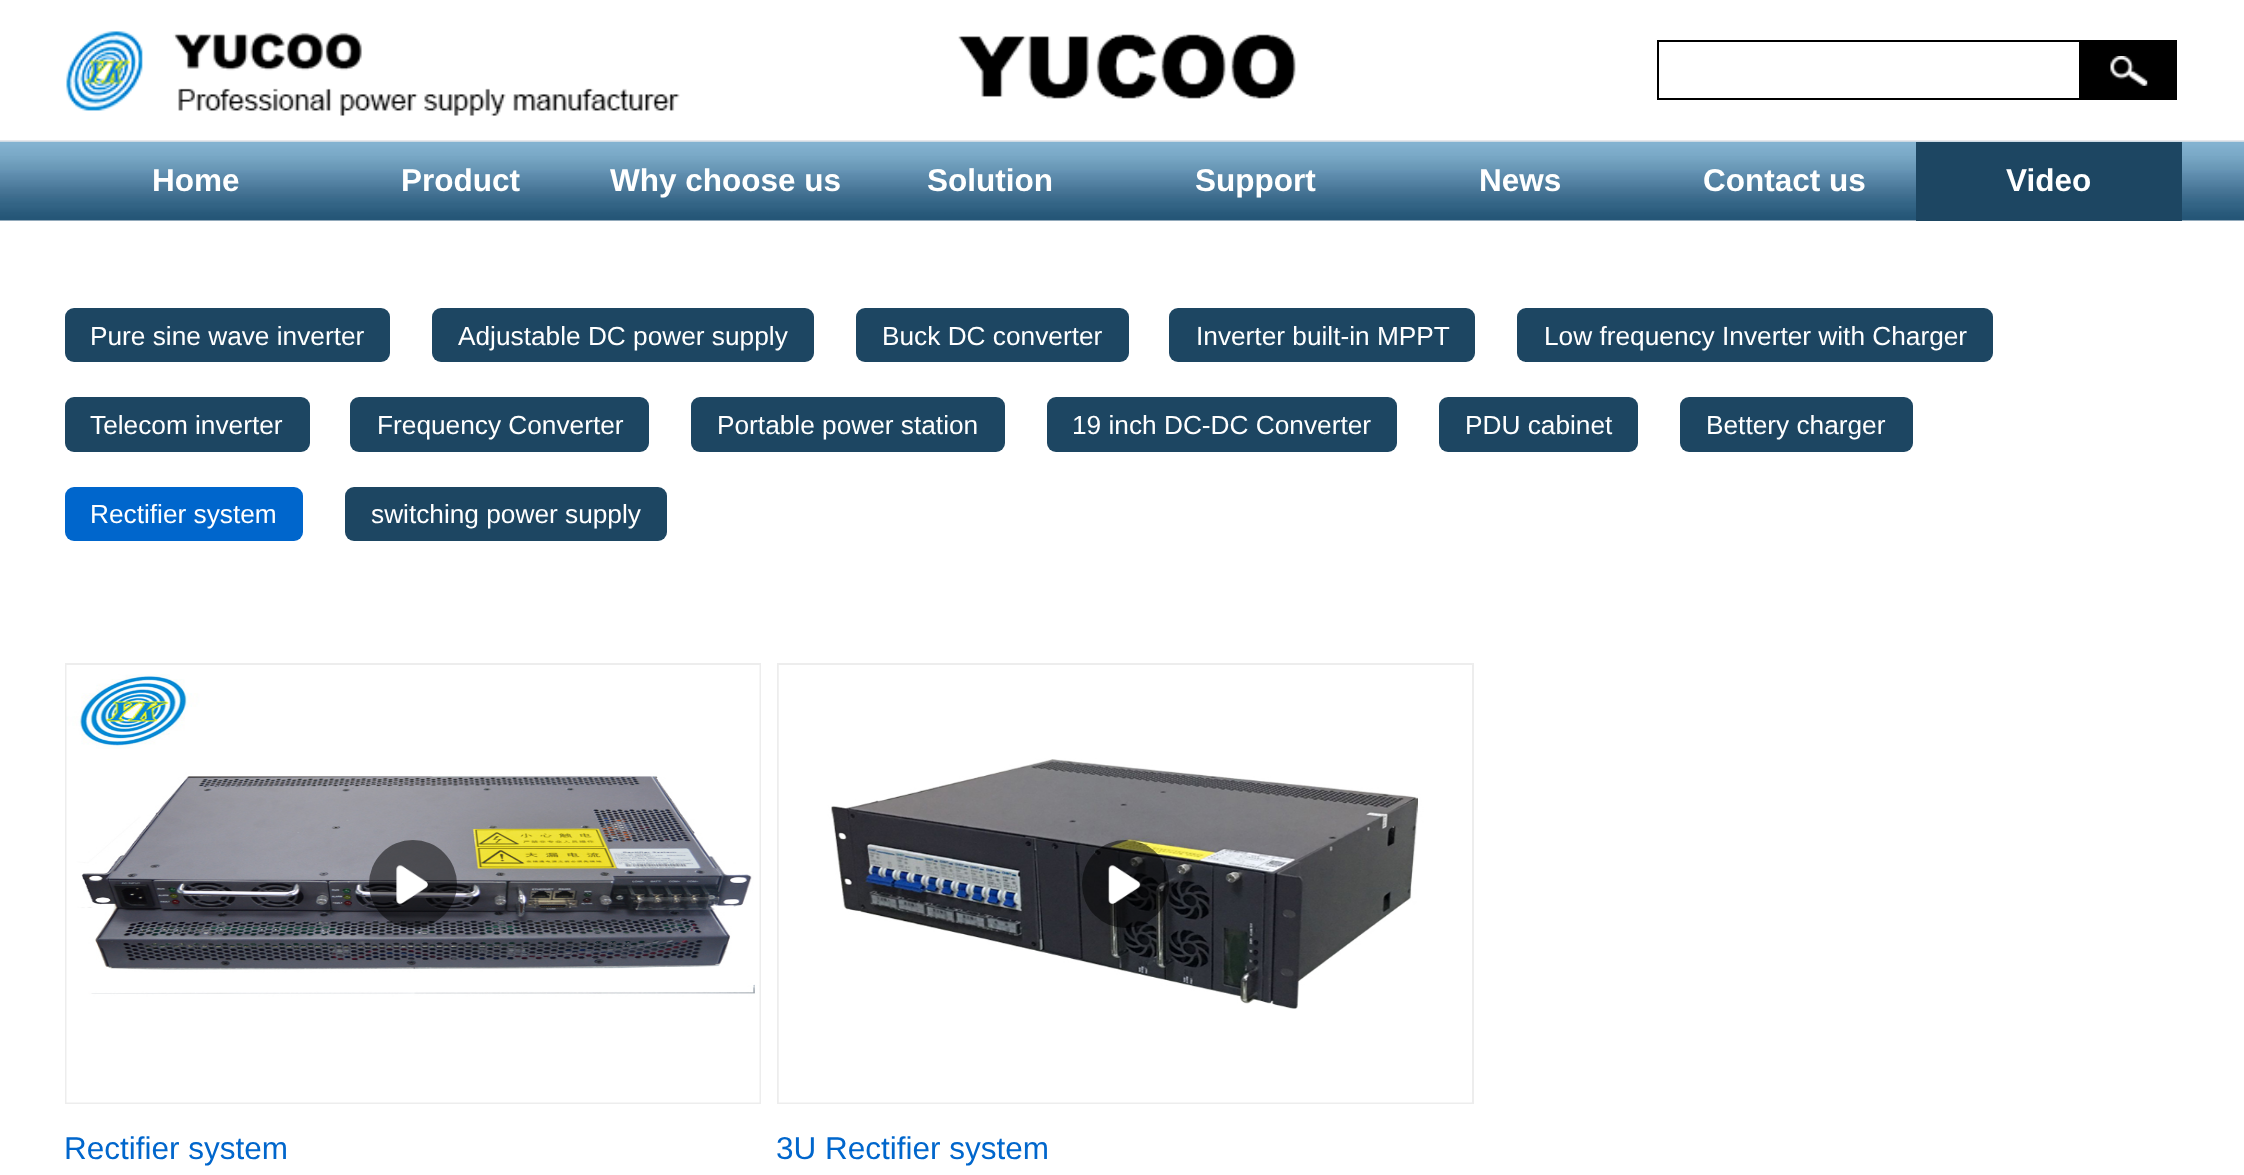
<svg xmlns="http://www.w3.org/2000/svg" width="2244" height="1175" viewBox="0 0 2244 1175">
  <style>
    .t1 { font: bold 31.5px Liberation Sans; fill: #fff; }
    .t2 { font: 26.25px Liberation Sans; fill: #fff; }
    .t3 { font: 31.5px Liberation Sans; fill: #06c; }
  </style>
  <rect width="100%" height="100%" fill="#fff"/>
  <rect x="0" y="140" width="2244" height="2" fill="#e6e7eb"/>
  <image x="66" y="31" width="614" height="85" href="images/1.png"/>
  <image x="958" y="34" width="338" height="65" href="images/2.png"/>
  <rect x="1658" y="41" width="422" height="58" fill="none" stroke="#000" stroke-width="2"/>
  <rect x="2081" y="40" width="96" height="60" fill="#000"/>
  <image x="2110" y="56" width="38" height="30" href="images/3.png"/>
  <image x="0" y="141" width="2244" height="80" href="images/4.png"/>
  <text x="152" y="191" class="t1">Home</text>
  <text x="401" y="191" class="t1">Product</text>
  <text x="610" y="191" class="t1">Why choose us</text>
  <text x="927" y="191" class="t1">Solution</text>
  <text x="1195" y="191" class="t1">Support</text>
  <text x="1479" y="191" class="t1">News</text>
  <text x="1703" y="191" class="t1">Contact us</text>
  <rect x="1916" y="142" width="266" height="79" fill="#1d4662"/>
  <text x="2006" y="191" class="t1">Video</text>
  <rect x="65" y="308" width="325" height="54" rx="9" fill="#1d4662"/>
  <text x="90" y="345" class="t2">Pure sine wave inverter</text>
  <rect x="432" y="308" width="382" height="54" rx="9" fill="#1d4662"/>
  <text x="458" y="345" class="t2">Adjustable DC power supply</text>
  <rect x="856" y="308" width="273" height="54" rx="9" fill="#1d4662"/>
  <text x="882" y="345" class="t2">Buck DC converter</text>
  <rect x="1169" y="308" width="306" height="54" rx="9" fill="#1d4662"/>
  <text x="1196" y="345" class="t2">Inverter built-in MPPT</text>
  <rect x="1517" y="308" width="476" height="54" rx="9" fill="#1d4662"/>
  <text x="1544" y="345" class="t2">Low frequency Inverter with Charger</text>
  <rect x="65" y="397" width="245" height="55" rx="9" fill="#1d4662"/>
  <text x="90" y="434" class="t2">Telecom inverter</text>
  <rect x="350" y="397" width="299" height="55" rx="9" fill="#1d4662"/>
  <text x="377" y="434" class="t2">Frequency Converter</text>
  <rect x="691" y="397" width="314" height="55" rx="9" fill="#1d4662"/>
  <text x="717" y="434" class="t2">Portable power station</text>
  <rect x="1047" y="397" width="350" height="55" rx="9" fill="#1d4662"/>
  <text x="1072" y="434" class="t2">19 inch DC-DC Converter</text>
  <rect x="1439" y="397" width="199" height="55" rx="9" fill="#1d4662"/>
  <text x="1465" y="434" class="t2">PDU cabinet</text>
  <rect x="1680" y="397" width="233" height="55" rx="9" fill="#1d4662"/>
  <text x="1706" y="434" class="t2">Bettery charger</text>
  <rect x="65" y="487" width="238" height="54" rx="9" fill="#06c"/>
  <text x="90" y="523" class="t2">Rectifier system</text>
  <rect x="345" y="487" width="322" height="54" rx="9" fill="#1d4662"/>
  <text x="371" y="523" class="t2">switching power supply</text>
  <rect x="66" y="664" width="694" height="439" fill="none" stroke="#ededed" stroke-width="2"/>
  <image x="66" y="665" width="694" height="438" href="images/5.png"/>
  <circle cx="413" cy="884" r="44" fill="#00000080"/>
  <image x="396" y="865" width="32" height="39" href="images/6.png"/>
  <text x="64" y="1159" class="t3">Rectifier system</text>
  <rect x="778" y="664" width="695" height="439" fill="none" stroke="#ededed" stroke-width="2"/>
  <image x="778" y="665" width="694" height="438" href="images/7.png"/>
  <rect x="1082" y="840" width="87" height="88" rx="43.5" fill="#00000080"/>
  <image x="1108" y="865" width="33" height="39" href="images/8.png"/>
  <text x="776" y="1159" class="t3">3U Rectifier system</text>
</svg>
